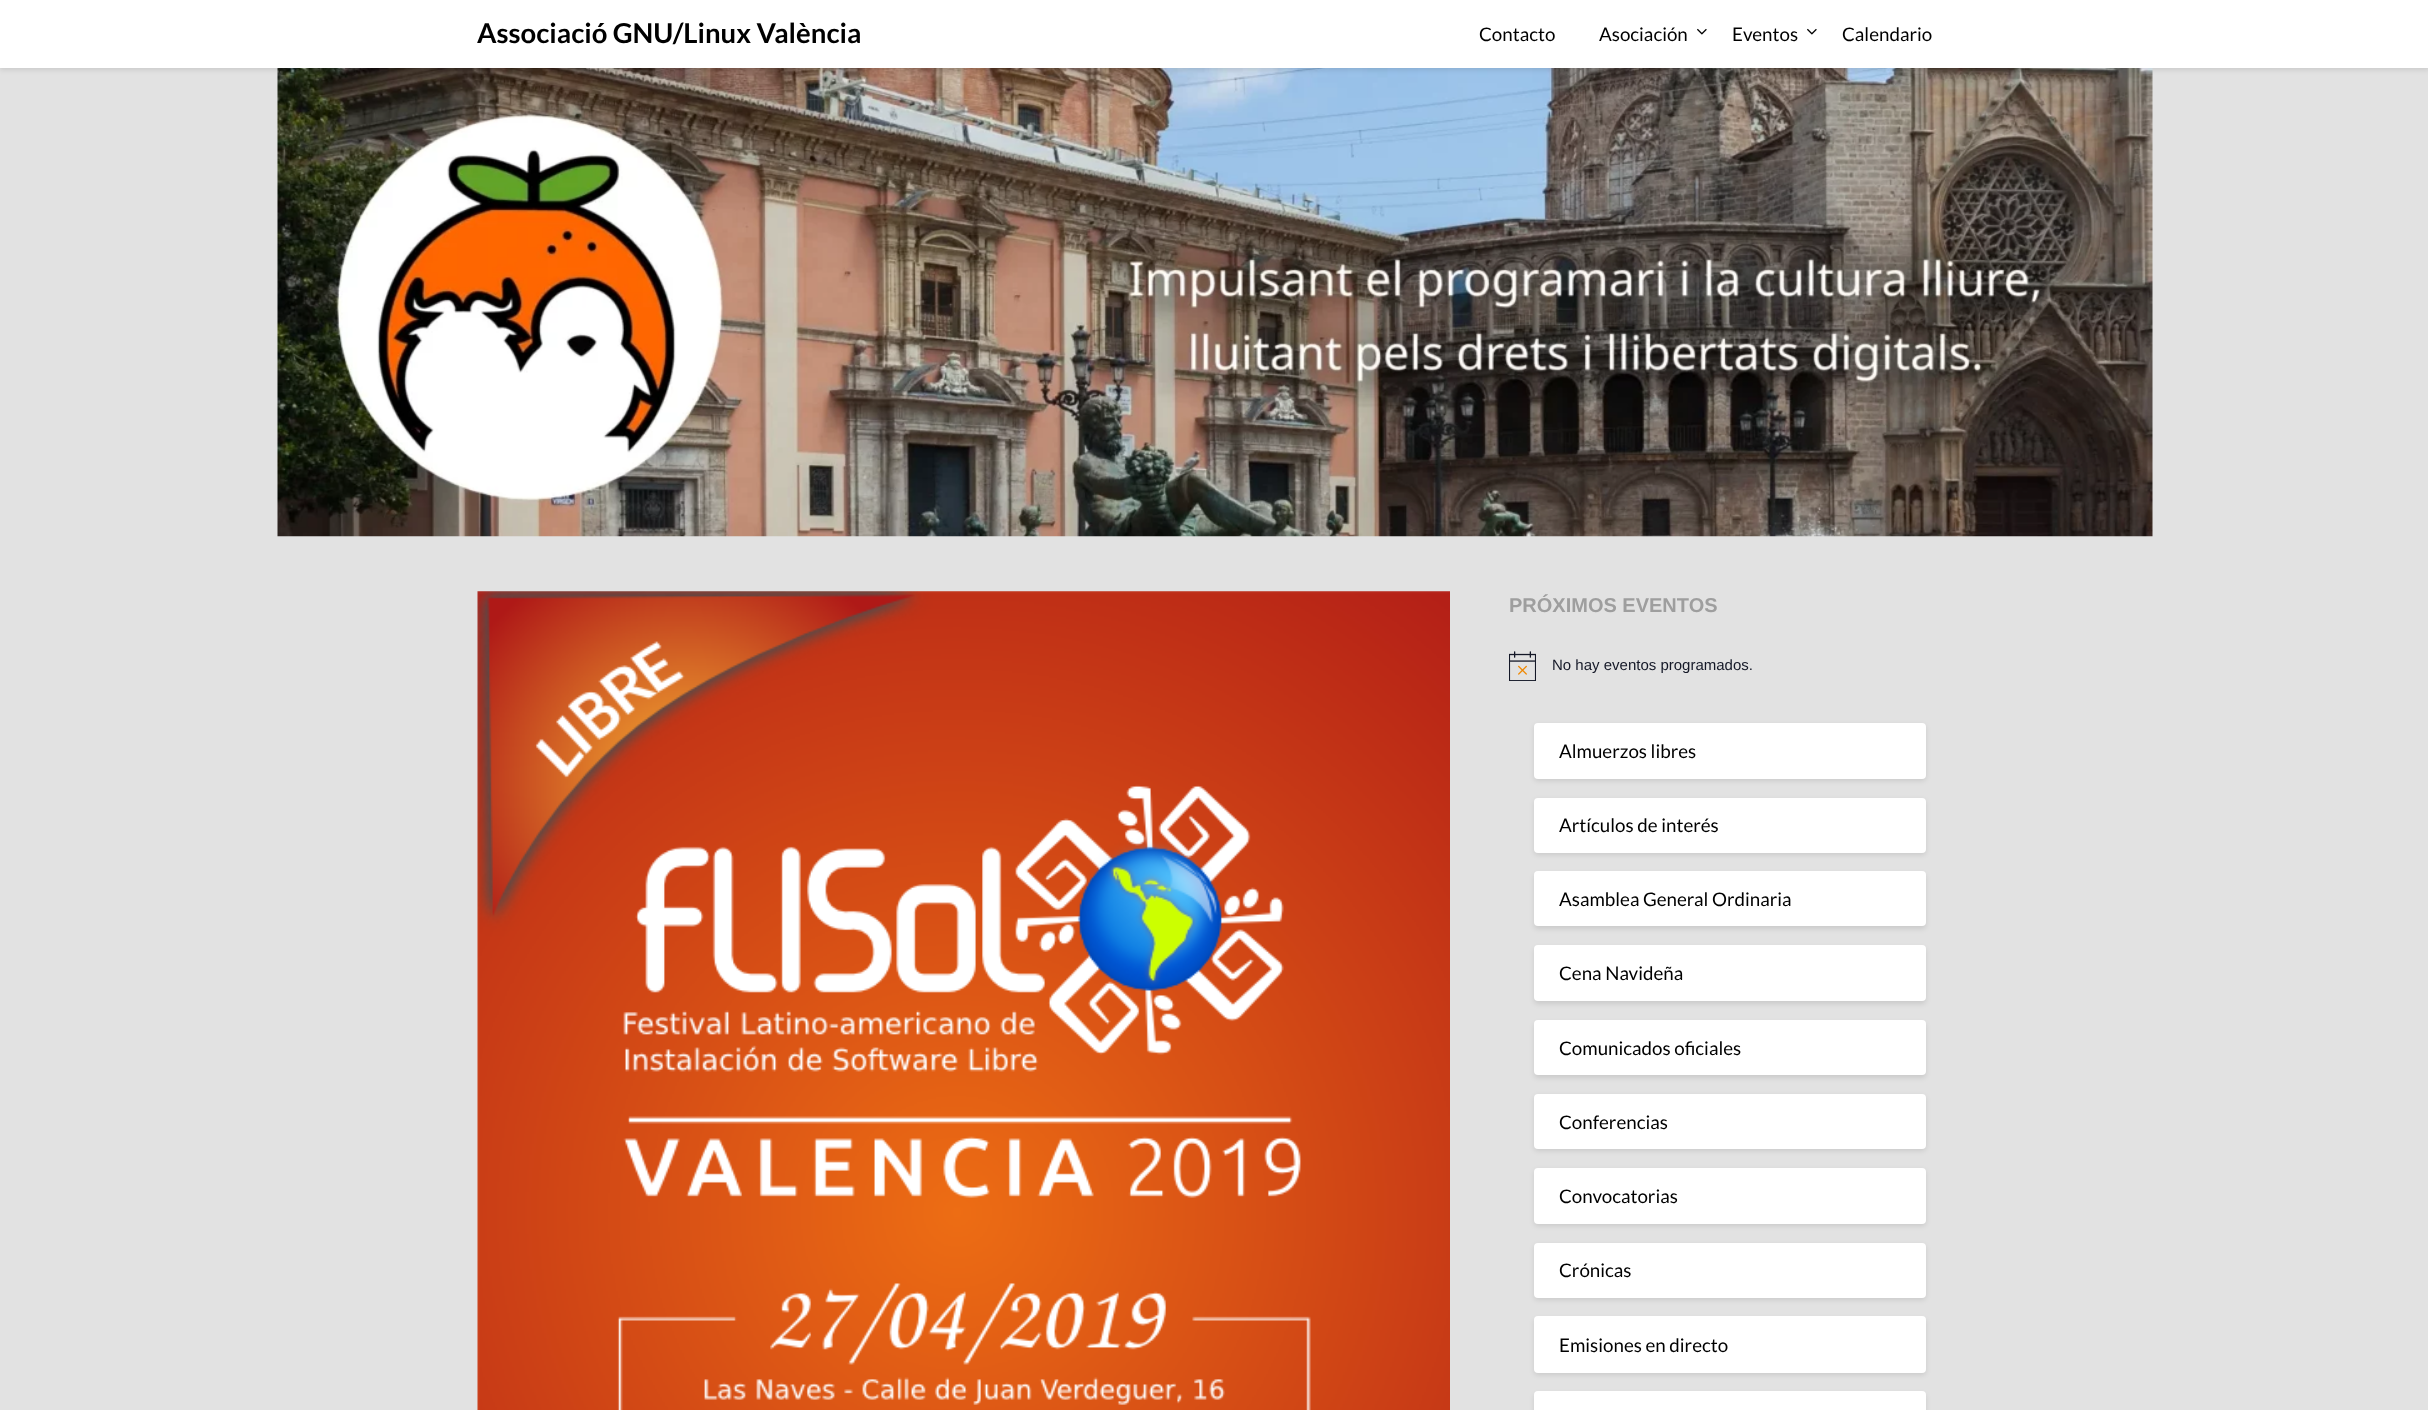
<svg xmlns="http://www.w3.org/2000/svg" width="2428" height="1410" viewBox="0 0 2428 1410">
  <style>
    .t1 { font: bold 27.5px Lato; fill: #000; }
    .t2 { font: 18.75px Lato; fill: #000; }
    .t3 { font: bold 20px Liberation Sans; fill: #9e9e9e; }
    .t4 { font: 15px Liberation Sans; fill: #141827; }
  </style>
  <rect width="100%" height="100%" fill="#e2e2e2"/>
  <image x="277" y="68" width="1876" height="469" href="images/2.png"/>
  <rect x="0" y="3" width="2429" height="67" fill="#0000001a" filter="blur(2.5px)"/>
  <rect x="0" y="0" width="2428" height="68" fill="#fff"/>
  <text x="477" y="43" class="t1">Associació GNU/Linux València</text>
  <text x="1479" y="41" class="t2">Contacto</text>
  <text x="1599" y="41" class="t2">Asociación</text>
  <image x="1697" y="28" width="10" height="7" href="images/1.png"/>
  <text x="1732" y="41" class="t2">Eventos</text>
  <image x="1807" y="28" width="10" height="7" href="images/1.png"/>
  <text x="1842" y="41" class="t2">Calendario</text>
  <image x="477" y="591" width="973" height="819" href="images/3.png"/>
  <text x="1509" y="612" class="t3">PRÓXIMOS EVENTOS</text>
  <image x="1509" y="651" width="27" height="30" href="images/4.png"/>
  <text x="1552" y="670" class="t4">No hay eventos programados.</text>
  <rect x="1534" y="725" width="392" height="56" rx="4" fill="#0000001a" filter="blur(2.5px)"/>
  <rect x="1534" y="723" width="392" height="56" rx="4" fill="#fff"/>
  <text x="1559" y="758" class="t2">Almuerzos libres</text>
  <rect x="1534" y="800" width="392" height="55" rx="4" fill="#0000001a" filter="blur(2.5px)"/>
  <rect x="1534" y="798" width="392" height="55" rx="4" fill="#fff"/>
  <text x="1559" y="832" class="t2">Artículos de interés</text>
  <rect x="1534" y="874" width="392" height="55" rx="4" fill="#0000001a" filter="blur(2.5px)"/>
  <rect x="1534" y="871" width="392" height="55" rx="4" fill="#fff"/>
  <text x="1559" y="906" class="t2">Asamblea General Ordinaria</text>
  <rect x="1534" y="948" width="392" height="56" rx="4" fill="#0000001a" filter="blur(2.5px)"/>
  <rect x="1534" y="945" width="392" height="56" rx="4" fill="#fff"/>
  <text x="1559" y="980" class="t2">Cena Navideña</text>
  <rect x="1534" y="1023" width="392" height="55" rx="4" fill="#0000001a" filter="blur(2.5px)"/>
  <rect x="1534" y="1020" width="392" height="55" rx="4" fill="#fff"/>
  <text x="1559" y="1055" class="t2">Comunicados oficiales</text>
  <rect x="1534" y="1096" width="392" height="55" rx="4" fill="#0000001a" filter="blur(2.5px)"/>
  <rect x="1534" y="1094" width="392" height="55" rx="4" fill="#fff"/>
  <text x="1559" y="1129" class="t2">Conferencias</text>
  <rect x="1534" y="1170" width="392" height="56" rx="4" fill="#0000001a" filter="blur(2.5px)"/>
  <rect x="1534" y="1168" width="392" height="56" rx="4" fill="#fff"/>
  <text x="1559" y="1203" class="t2">Convocatorias</text>
  <rect x="1534" y="1245" width="392" height="55" rx="4" fill="#0000001a" filter="blur(2.5px)"/>
  <rect x="1534" y="1243" width="392" height="55" rx="4" fill="#fff"/>
  <text x="1559" y="1277" class="t2">Crónicas</text>
  <rect x="1534" y="1319" width="392" height="56" rx="4" fill="#0000001a" filter="blur(2.5px)"/>
  <rect x="1534" y="1316" width="392" height="57" rx="4" fill="#fff"/>
  <text x="1559" y="1352" class="t2">Emisiones en directo</text>
  <rect x="1534" y="1394" width="392" height="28" rx="4" fill="#0000001a" filter="blur(2.5px)"/>
  <rect x="1534" y="1391" width="392" height="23" rx="4" fill="#fff"/>
</svg>
